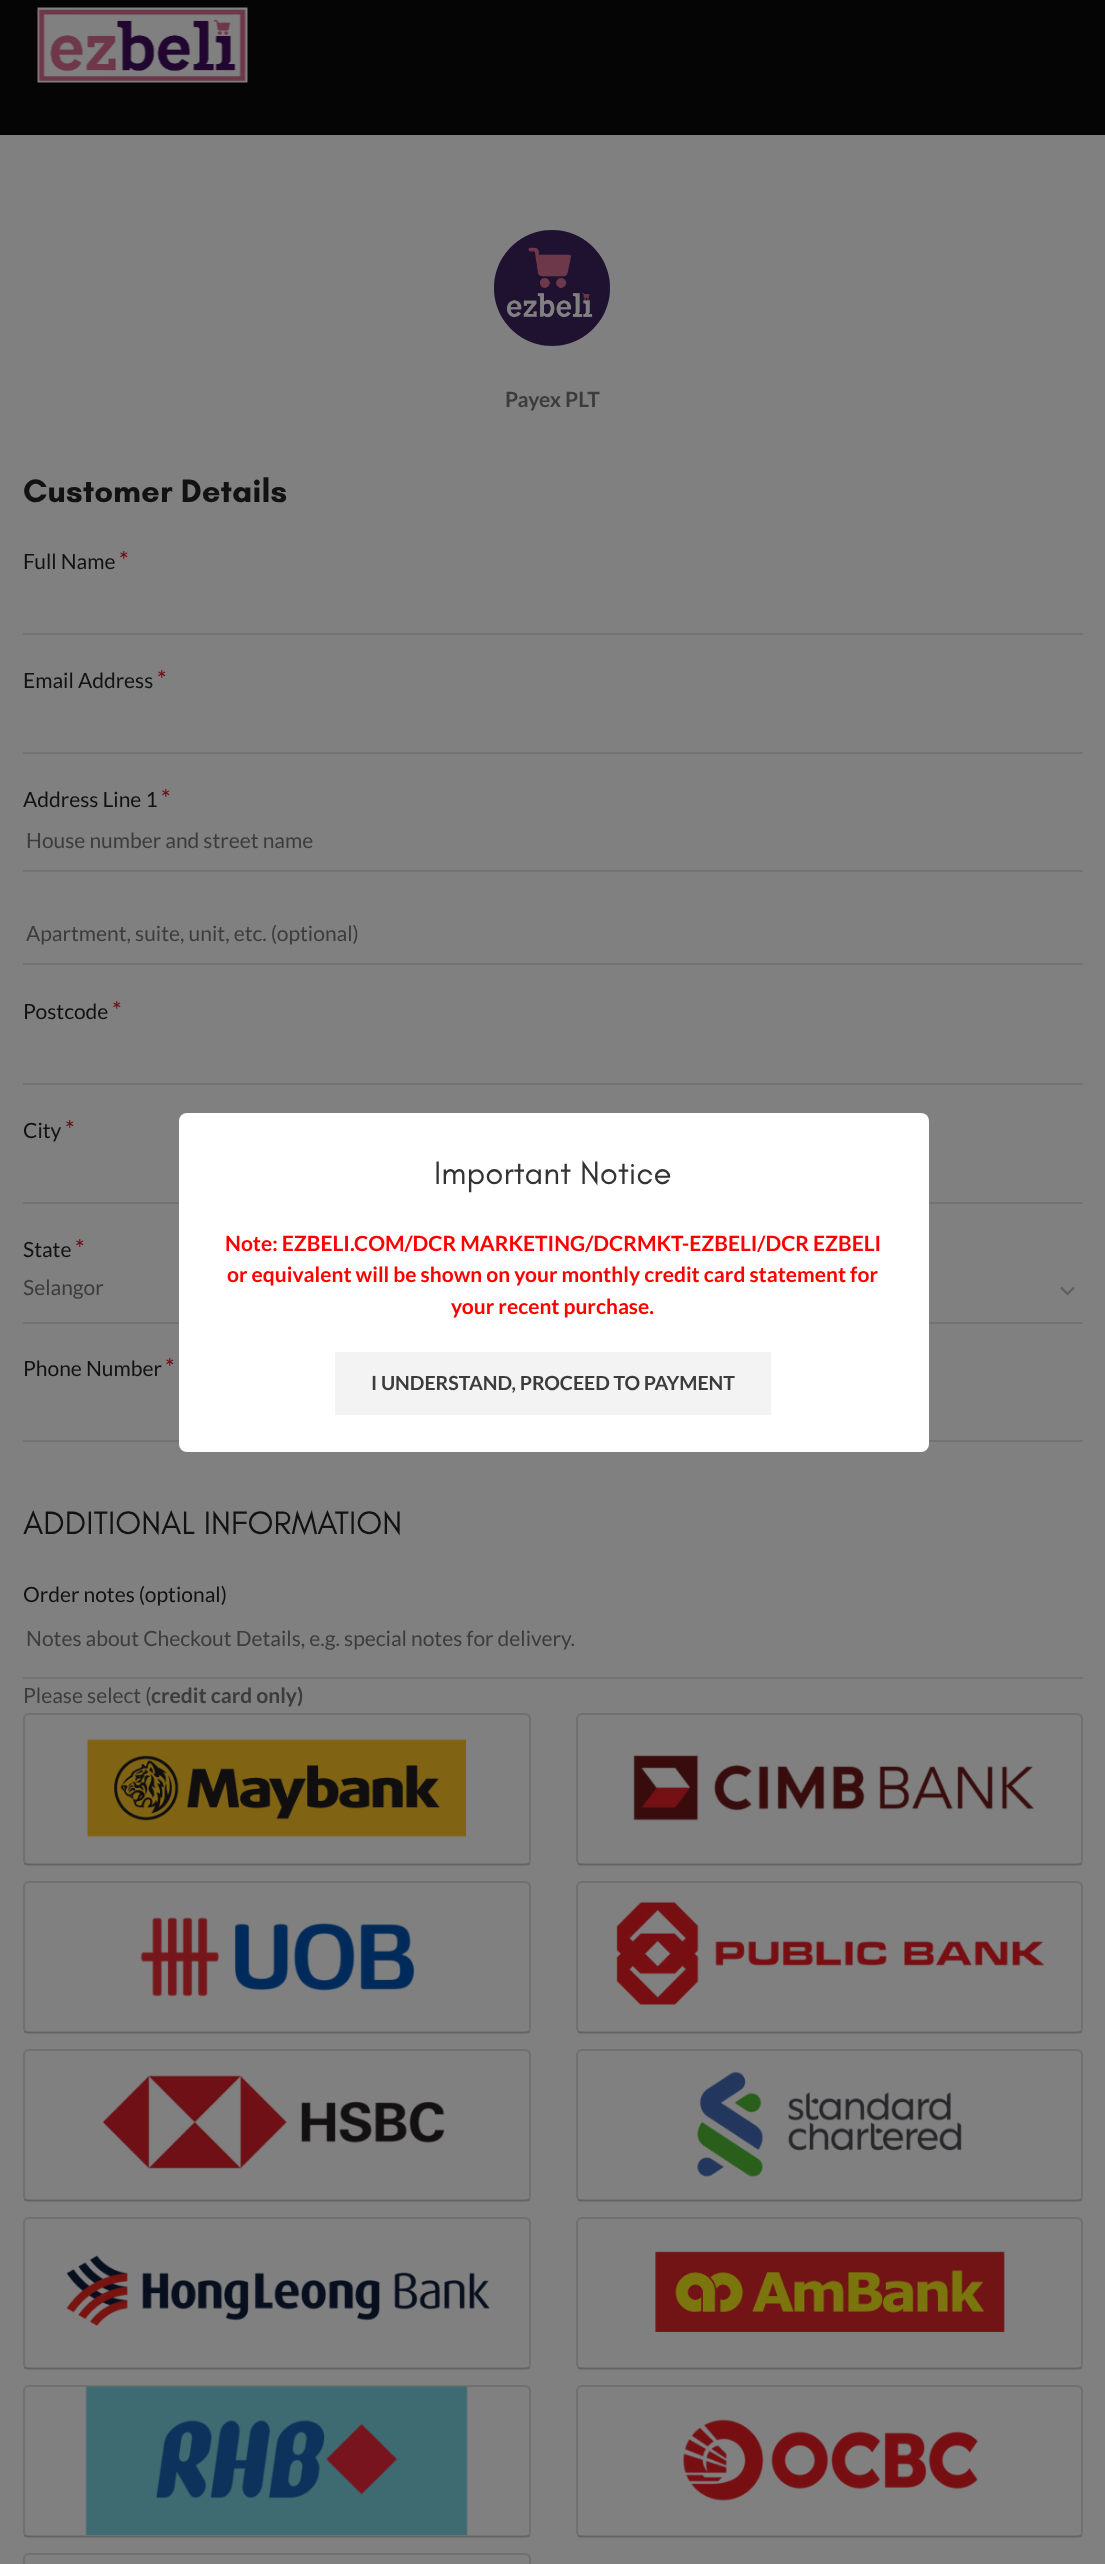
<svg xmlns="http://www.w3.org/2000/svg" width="1105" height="2564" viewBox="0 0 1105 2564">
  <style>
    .t1 { font: bold 21px Lato; fill: #3c3c3c; }
    .t2 { font: bold 33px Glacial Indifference; fill: #121212; }
    .t3 { font: 21px Lato; fill: #121212; }
    .t4 { font: 24px Lato; fill: #700810; }
    .t5 { font: 21px Lato; fill: #3c3c3c; }
    .t6 { font: 33px Glacial Indifference; fill: #121212; }
    .t7 { font: 33px Glacial Indifference; fill: #333; }
    .t8 { font: bold 21px Lato; fill: #f00; }
    .t9 { font: bold 19.5px Lato; fill: #3c3c3c; }
  </style>
  <rect width="100%" height="100%" fill="#808080"/>
  <rect x="0" y="0" width="1105" height="135" fill="#050505"/>
  <image x="37" y="7" width="211" height="76" href="images/1.png"/>
  <image x="494" y="230" width="116" height="116" href="images/2.png"/>
  <text x="505" y="407" class="t1">Payex PLT</text>
  <text x="23" y="502" class="t2">Customer Details</text>
  <text x="23" y="569" class="t3">Full Name</text>
  <text x="119" y="569" class="t4">*</text>
  <rect x="23" y="633" width="1060" height="2" fill="#737373"/>
  <text x="23" y="688" class="t3">Email Address</text>
  <text x="157" y="688" class="t4">*</text>
  <rect x="23" y="752" width="1060" height="2" fill="#737373"/>
  <text x="23" y="807" class="t3">Address Line 1</text>
  <text x="161" y="807" class="t4">*</text>
  <rect x="23" y="870" width="1060" height="2" fill="#737373"/>
  <text x="26" y="848" class="t5">House number and street name</text>
  <rect x="23" y="963" width="1060" height="2" fill="#737373"/>
  <text x="26" y="941" class="t5">Apartment, suite, unit, etc. (optional)</text>
  <text x="23" y="1019" class="t3">Postcode</text>
  <text x="112" y="1019" class="t4">*</text>
  <rect x="23" y="1083" width="1060" height="2" fill="#737373"/>
  <text x="23" y="1138" class="t3">City</text>
  <text x="65" y="1138" class="t4">*</text>
  <rect x="23" y="1202" width="1060" height="2" fill="#737373"/>
  <text x="23" y="1257" class="t3">State</text>
  <text x="75" y="1257" class="t4">*</text>
  <rect x="23" y="1322" width="1060" height="2" fill="#737373"/>
  <text x="23" y="1295" class="t5">Selangor</text>
  <path d="M1061 1287.5L1067.5 1294L1074 1287.5" fill="none" stroke="#5e5e5e" stroke-width="2.2"/>
  <text x="23" y="1376" class="t3">Phone Number</text>
  <text x="165" y="1376" class="t4">*</text>
  <rect x="23" y="1440" width="1060" height="2" fill="#737373"/>
  <text x="23" y="1534" class="t6">ADDITIONAL INFORMATION</text>
  <text x="23" y="1602" class="t3">Order notes (optional)</text>
  <rect x="23" y="1677" width="1060" height="2" fill="#737373"/>
  <text x="26" y="1646" class="t5">Notes about Checkout Details, e.g. special notes for delivery.</text>
  <text x="23" y="1703" class="t5">Please select (</text>
  <text x="151" y="1703" class="t1">credit card only)</text>
  <rect x="24" y="1714" width="506" height="151" rx="5" fill="none" stroke="#707070" stroke-width="2"/>
  <image x="87" y="1739" width="380" height="98" href="images/3.png"/>
  <rect x="24" y="1863" width="506" height="2" fill="#0000001a"/>
  <rect x="577" y="1714" width="505" height="151" rx="5" fill="none" stroke="#707070" stroke-width="2"/>
  <image x="633" y="1755" width="401" height="66" href="images/4.png"/>
  <rect x="578" y="1863" width="504" height="2" fill="#0000001a"/>
  <rect x="24" y="1882" width="506" height="151" rx="5" fill="none" stroke="#707070" stroke-width="2"/>
  <image x="140" y="1917" width="275" height="80" href="images/5.png"/>
  <rect x="24" y="2031" width="506" height="2" fill="#0000001a"/>
  <rect x="577" y="1882" width="505" height="151" rx="5" fill="none" stroke="#707070" stroke-width="2"/>
  <image x="616" y="1901" width="429" height="104" href="images/6.png"/>
  <rect x="578" y="2031" width="504" height="2" fill="#0000001a"/>
  <rect x="24" y="2050" width="506" height="151" rx="5" fill="none" stroke="#707070" stroke-width="2"/>
  <image x="102" y="2075" width="343" height="94" href="images/7.png"/>
  <rect x="24" y="2199" width="506" height="2" fill="#0000001a"/>
  <rect x="577" y="2050" width="505" height="151" rx="5" fill="none" stroke="#707070" stroke-width="2"/>
  <image x="697" y="2071" width="265" height="106" href="images/8.png"/>
  <rect x="578" y="2199" width="504" height="2" fill="#0000001a"/>
  <rect x="24" y="2218" width="506" height="151" rx="5" fill="none" stroke="#707070" stroke-width="2"/>
  <image x="66" y="2255" width="424" height="71" href="images/9.png"/>
  <rect x="24" y="2367" width="506" height="2" fill="#0000001a"/>
  <rect x="577" y="2218" width="505" height="151" rx="5" fill="none" stroke="#707070" stroke-width="2"/>
  <image x="655" y="2251" width="350" height="81" href="images/10.png"/>
  <rect x="578" y="2367" width="504" height="2" fill="#0000001a"/>
  <rect x="24" y="2386" width="506" height="151" rx="5" fill="none" stroke="#707070" stroke-width="2"/>
  <image x="85" y="2386" width="383" height="149" href="images/11.png"/>
  <rect x="24" y="2535" width="506" height="2" fill="#0000001a"/>
  <rect x="577" y="2386" width="505" height="151" rx="5" fill="none" stroke="#707070" stroke-width="2"/>
  <image x="682" y="2419" width="296" height="82" href="images/12.png"/>
  <rect x="578" y="2535" width="504" height="2" fill="#0000001a"/>
  <rect x="24" y="2554" width="506" height="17" rx="5" fill="none" stroke="#707070" stroke-width="2"/>
  <rect x="179" y="1113" width="750" height="339" rx="8" fill="#fff"/>
  <text x="434" y="1184" class="t7">Important Notice</text>
  <text x="225" y="1251" class="t8">Note: EZBELI.COM/DCR MARKETING/DCRMKT-EZBELI/DCR EZBELI</text>
  <text x="227" y="1282" class="t8">or equivalent will be shown on your monthly credit card statement for</text>
  <text x="451" y="1314" class="t8">your recent purchase.</text>
  <rect x="335" y="1352" width="436" height="63" fill="#f3f3f3"/>
  <text x="371" y="1390" class="t9">I UNDERSTAND, PROCEED TO PAYMENT</text>
</svg>
